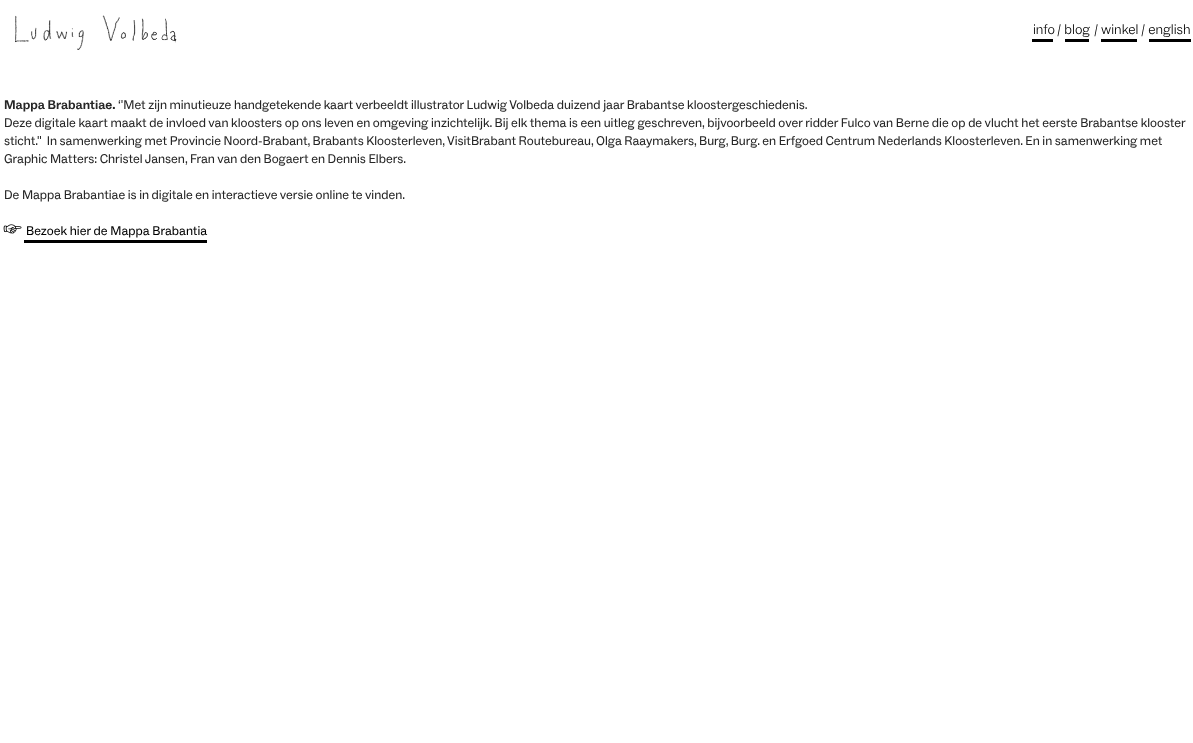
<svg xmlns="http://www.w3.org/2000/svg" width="1193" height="743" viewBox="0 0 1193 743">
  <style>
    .t1 { font: 300 14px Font; fill: #000; }
    .t2 { font: bold 12.85px Font; fill: #262626; }
    .t3 { font: 12.85px Font; fill: #262626; }
    .t4 { font: 12.85px Font; fill: #000; }
  </style>
  <rect width="100%" height="100%" fill="#fff"/>
  <image x="15" y="15" width="162" height="35" href="images/1.png"/>
  <text x="1033" y="34" class="t1">info</text>
  <rect x="1032" y="39" width="21" height="3" fill="#000"/>
  <text x="1057" y="34" class="t1">/ blog</text>
  <text x="1094" y="34" class="t1">/ winkel</text>
  <text x="1141" y="34" class="t1">/ english</text>
  <rect x="1065" y="39" width="24" height="3" fill="#000"/>
  <rect x="1101" y="39" width="36" height="3" fill="#000"/>
  <rect x="1149" y="39" width="42" height="3" fill="#000"/>
  <text x="4" y="109" class="t2">Mappa Brabantiae.</text>
  <text x="118" y="109" word-spacing="-0.25" class="t3">‘'Met zijn minutieuze handgetekende kaart verbeeldt illustrator Ludwig Volbeda duizend jaar Brabantse kloostergeschiedenis.</text>
  <text x="4" y="127" word-spacing="-0.15" class="t3">Deze digitale kaart maakt de invloed van kloosters op ons leven en omgeving inzichtelijk. Bij elk thema is een uitleg geschreven, bijvoorbeeld over ridder Fulco van Berne die op de vlucht het eerste Brabantse klooster</text>
  <text x="4" y="145" word-spacing="-0.25" class="t3" xml:space="preserve">sticht.''  In samenwerking met Provincie Noord-Brabant, Brabants Kloosterleven, VisitBrabant Routebureau, Olga Raaymakers, Burg, Burg. en Erfgoed Centrum Nederlands Kloosterleven. En in samenwerking met</text>
  <text x="4" y="163" word-spacing="-0.25" class="t3">Graphic Matters: Christel Jansen, Fran van den Bogaert en Dennis Elbers.</text>
  <text x="4" y="199" word-spacing="-0.25" class="t3">De Mappa Brabantiae is in digitale en interactieve versie online te vinden.</text>
  <image x="3" y="224" width="19" height="10" href="images/2.png"/>
  <text x="26" y="235" class="t4">Bezoek hier de Mappa Brabantia</text>
  <rect x="24" y="240" width="183" height="3" fill="#000"/>
</svg>
